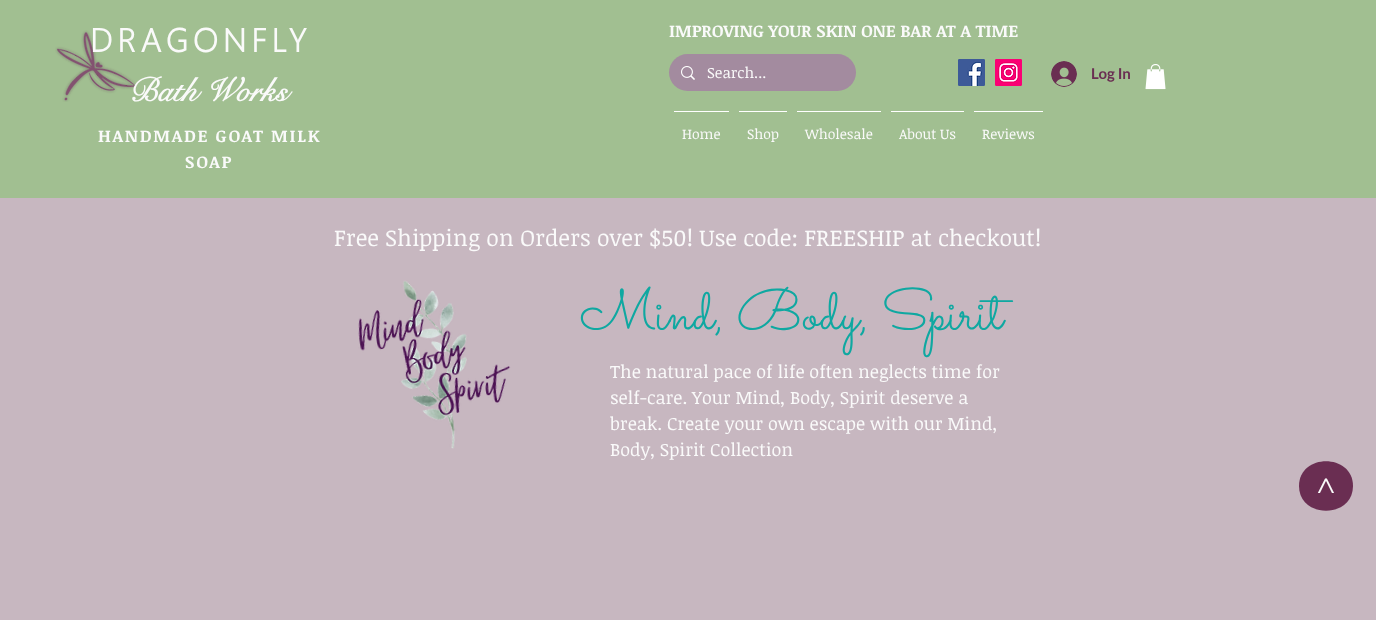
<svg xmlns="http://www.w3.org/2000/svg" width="1376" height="620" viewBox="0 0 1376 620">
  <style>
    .t1 { font: bold 33px Segoe UI; letter-spacing: 5px; fill: #fafafa; }
    .t2 { font: bold 33px 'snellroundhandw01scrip'; fill: #fafafa; }
    .t3 { font: bold 17px Noticia Text; letter-spacing: 1.75px; fill: #fafafa; }
    .t4 { font: bold 17px Noticia Text; fill: #fafafa; }
    .t5 { font: 15px Noticia Text; fill: #fafafa; }
    .t6 { font: bold 15px Lato; fill: #6a2e52; }
    .t7 { font: 14px Noticia Text; fill: #fafafa; }
    .t8 { font: 23px Noticia Text; fill: #fafafa; }
    .t9 { font: 57px Sacramento; fill: #0fa8a1; }
    .t10 { font: 18px Noticia Text; fill: #fafafa; }
    .t11 { font: 33px 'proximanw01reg'; fill: #fafafa; }
  </style>
  <rect width="100%" height="100%" fill="#c7b7c0"/>
  <rect x="0" y="0" width="1376" height="198" fill="#a1bf91"/>
  <image x="55" y="30" width="82" height="72" href="images/1.png"/>
  <text x="90" y="52" class="t1">DRAGONFLY</text>
  <text x="129" y="101" class="t2">Bath Works</text>
  <text x="98" y="142" class="t3">HANDMADE GOAT MILK</text>
  <text x="185" y="168" class="t3">SOAP</text>
  <text x="669" y="37" class="t4">IMPROVING YOUR SKIN ONE BAR AT A TIME</text>
  <rect x="669" y="54" width="187" height="37" rx="18.5" fill="#a38b9f"/>
  <image x="681" y="66" width="14" height="14" href="images/2.png"/>
  <text x="707" y="78" class="t5">Search...</text>
  <image x="958" y="59" width="27" height="27" href="images/3.png"/>
  <image x="995" y="59" width="27" height="27" href="images/4.png"/>
  <image x="1051" y="61" width="26" height="26" href="images/5.png"/>
  <text x="1091" y="79" class="t6">Log In</text>
  <image x="1145" y="64" width="21" height="26" href="images/6.png"/>
  <rect x="674" y="111" width="55" height="1" fill="#fff"/>
  <text x="682" y="139" class="t7">Home</text>
  <rect x="739" y="111" width="48" height="1" fill="#fff"/>
  <text x="747" y="139" class="t7">Shop</text>
  <rect x="797" y="111" width="84" height="1" fill="#fff"/>
  <text x="805" y="139" class="t7">Wholesale</text>
  <rect x="891" y="111" width="73" height="1" fill="#fff"/>
  <text x="899" y="139" class="t7">About Us</text>
  <rect x="974" y="111" width="69" height="1" fill="#fff"/>
  <text x="982" y="139" class="t7">Reviews</text>
  <text x="334" y="246" class="t8">Free Shipping on Orders over $50! Use code: FREESHIP at checkout!</text>
  <image x="358" y="280" width="153" height="169" href="images/7.png"/>
  <text x="580" y="329" class="t9">Mind, Body, Spirit</text>
  <text x="610" y="378" class="t10">The natural pace of life often neglects time for</text>
  <text x="610" y="404" class="t10">self-care. Your Mind, Body, Spirit deserve a</text>
  <text x="610" y="430" class="t10">break. Create your own escape with our Mind,</text>
  <text x="610" y="456" class="t10">Body, Spirit Collection</text>
  <path d="M1299 486C1299 453 1353 453 1353 486C1353 519 1299 519 1299 486Z" fill="#6a2e52"/>
  <text x="1337" y="494" transform="rotate(-90 1337 494)" class="t11">&gt;</text>
</svg>
